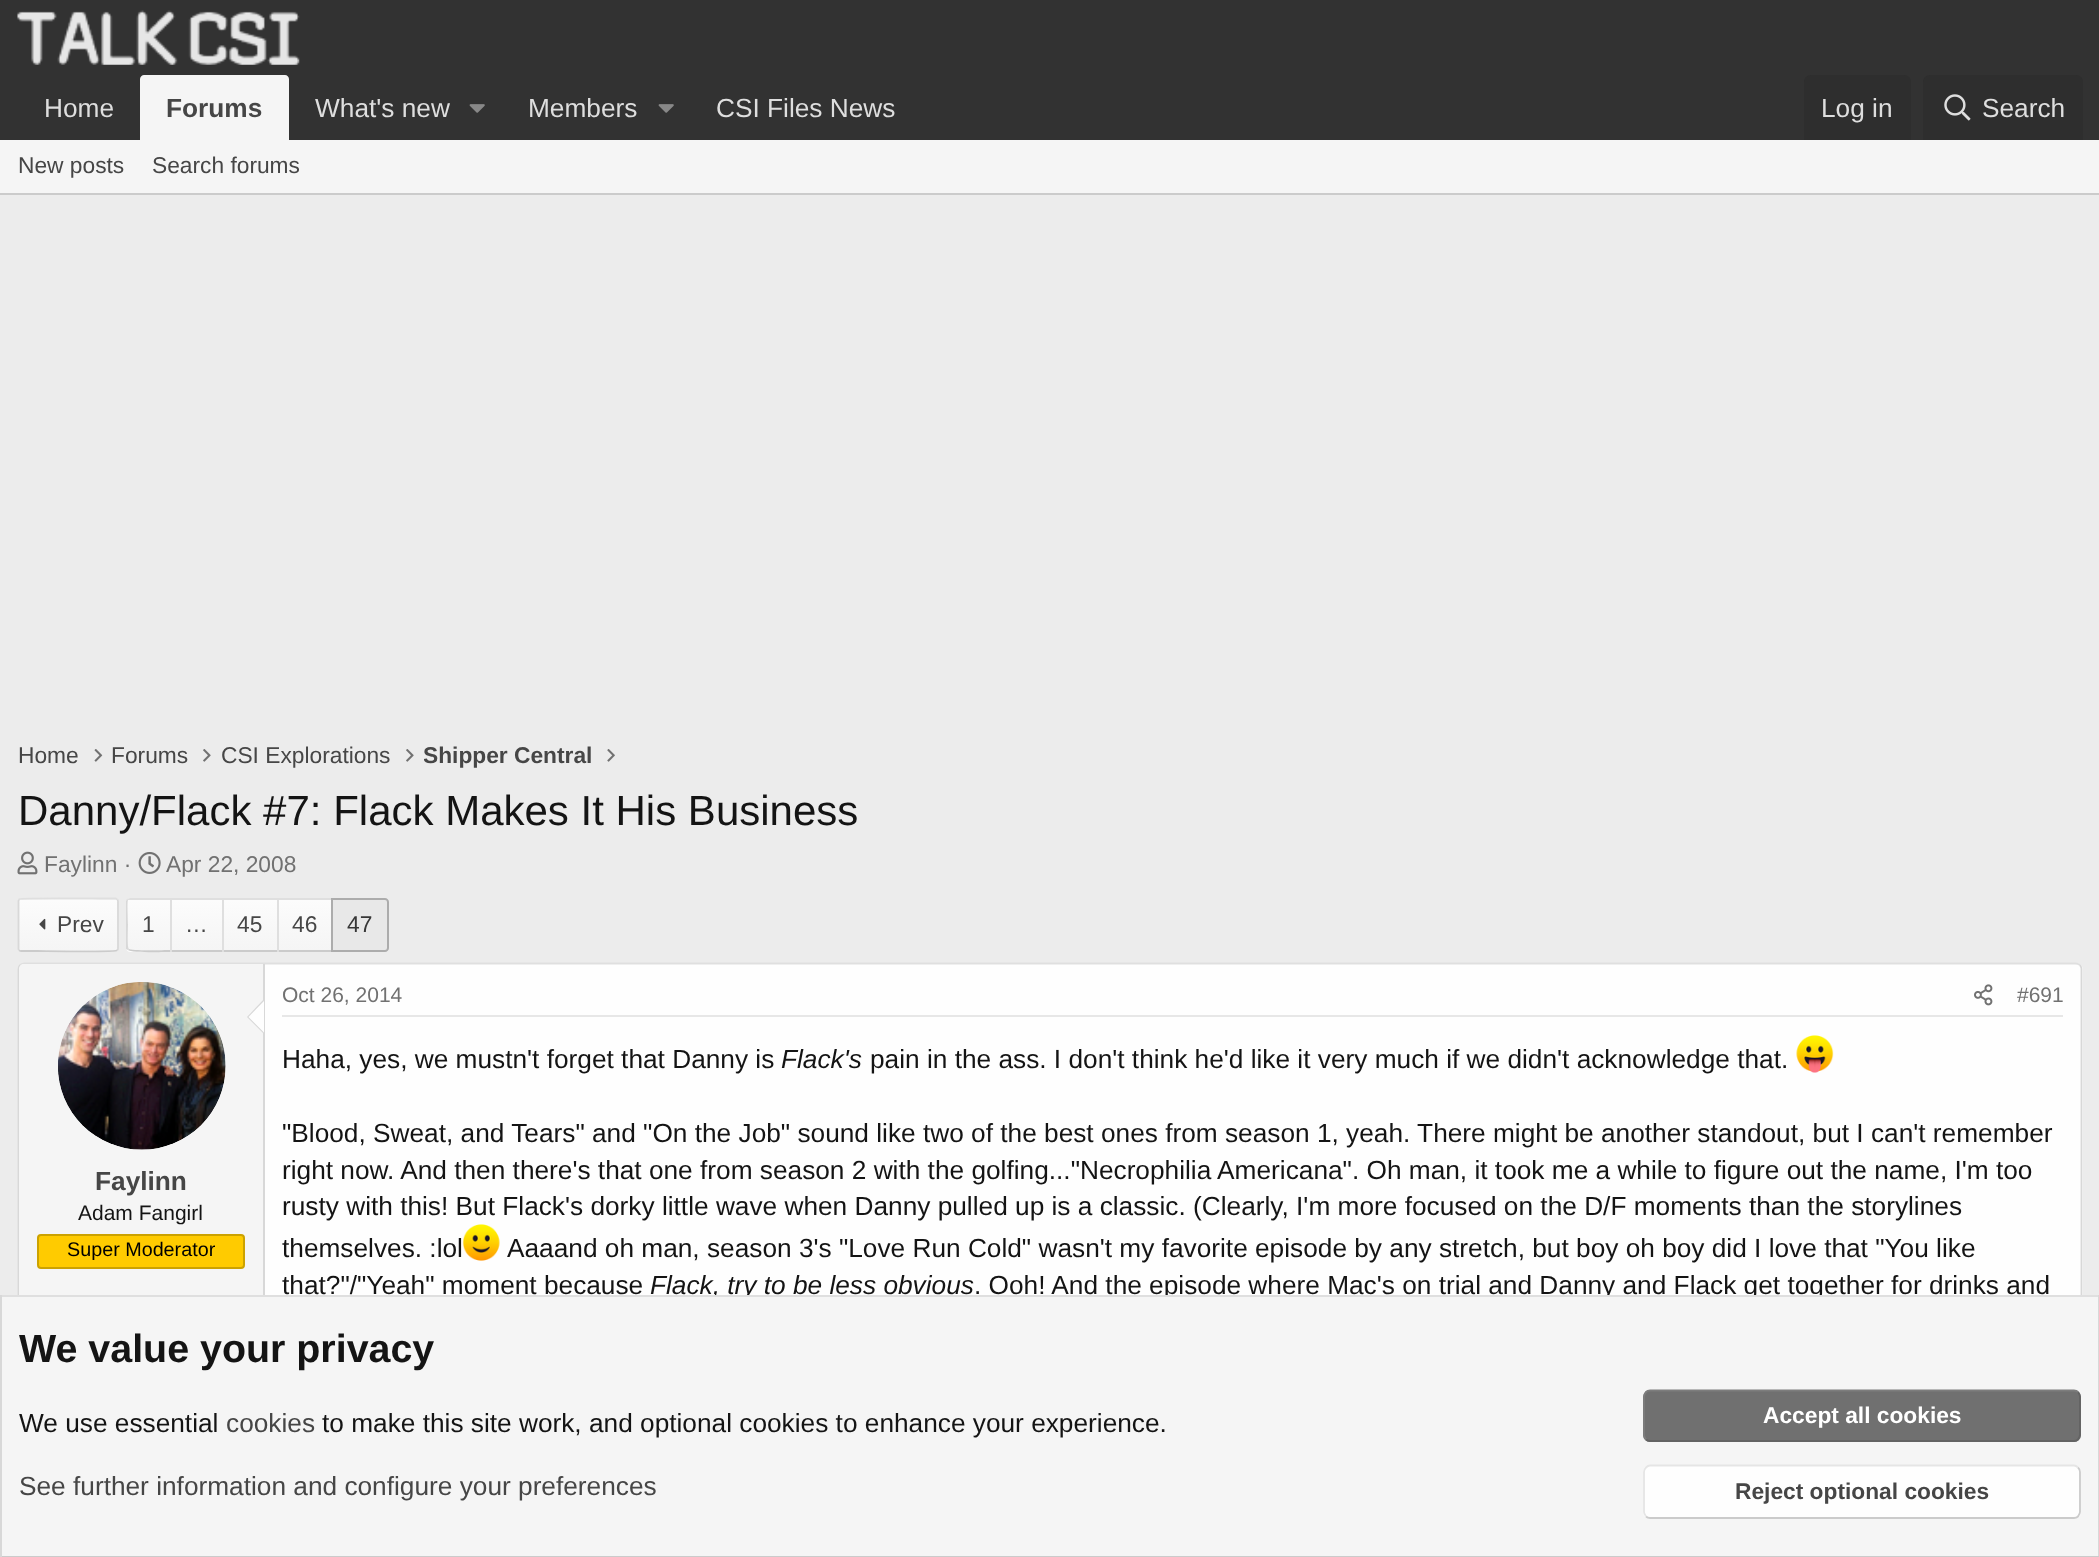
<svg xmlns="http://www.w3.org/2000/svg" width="2099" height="1557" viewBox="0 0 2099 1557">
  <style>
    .t1 { font: 26.25px Liberation Sans; fill: #dedede; }
    .t2 { font: bold 26.25px Liberation Sans; fill: #464646; }
    .t3 { font: 22.75px Liberation Sans; fill: #464646; }
    .t4 { font: bold 22.75px Liberation Sans; fill: #464646; }
    .t5 { font: 42px Liberation Sans; fill: #141414; }
    .t6 { font: 22.75px Liberation Sans; fill: #717171; }
    .t7 { font: 22.75px Liberation Sans; fill: #373737; }
    .t8 { font: 21px Liberation Sans; fill: #141414; }
    .t9 { font: 19.75px Liberation Sans; fill: #000; }
    .t10 { font: 21px Liberation Sans; fill: #717171; }
    .t11 { font: 26.25px Liberation Sans; fill: #141414; }
    .t12 { font: italic 26.25px Liberation Sans; fill: #141414; }
    .t13 { font: bold 39.4px Liberation Sans; fill: #141414; }
    .t14 { font: 26.25px Liberation Sans; fill: #464646; }
    .t15 { font: bold 22.75px Liberation Sans; fill: #fff; }
  </style>
  <defs>
    <clipPath id="clip1"><rect x="424" y="739" width="168" height="35"/></clipPath>
    <clipPath id="clip2"><rect x="18" y="898" width="101" height="54" rx="4"/></clipPath>
    <linearGradient id="g1" gradientUnits="userSpaceOnUse" x1="68" y1="900" x2="68" y2="849"><stop offset="0" stop-color="#f5f5f5"/><stop offset="1" stop-color="#fcfcfc"/></linearGradient>
    <linearGradient id="g2" gradientUnits="userSpaceOnUse" x1="68" y1="950" x2="68" y2="900"><stop offset="0" stop-color="#f5f5f5"/><stop offset="1" stop-color="#fcfcfc"/></linearGradient>
    <linearGradient id="g3" gradientUnits="userSpaceOnUse" x1="68" y1="1001" x2="68" y2="950"><stop offset="0" stop-color="#f5f5f5"/><stop offset="1" stop-color="#fcfcfc"/></linearGradient>
    <clipPath id="clip3"><path d="M130 898H170V952H130C128 952 126 950 126 948V902C126 900 128 898 130 898Z"/></clipPath>
    <linearGradient id="g4" gradientUnits="userSpaceOnUse" x1="149" y1="900" x2="149" y2="849"><stop offset="0" stop-color="#f5f5f5"/><stop offset="1" stop-color="#fcfcfc"/></linearGradient>
    <linearGradient id="g5" gradientUnits="userSpaceOnUse" x1="149" y1="950" x2="149" y2="900"><stop offset="0" stop-color="#f5f5f5"/><stop offset="1" stop-color="#fcfcfc"/></linearGradient>
    <linearGradient id="g6" gradientUnits="userSpaceOnUse" x1="149" y1="1001" x2="149" y2="950"><stop offset="0" stop-color="#f5f5f5"/><stop offset="1" stop-color="#fcfcfc"/></linearGradient>
    <linearGradient id="g7" gradientUnits="userSpaceOnUse" x1="197" y1="950" x2="197" y2="900"><stop offset="0" stop-color="#f5f5f5"/><stop offset="1" stop-color="#fcfcfc"/></linearGradient>
    <linearGradient id="g8" gradientUnits="userSpaceOnUse" x1="250" y1="950" x2="250" y2="900"><stop offset="0" stop-color="#f5f5f5"/><stop offset="1" stop-color="#fcfcfc"/></linearGradient>
    <linearGradient id="g9" gradientUnits="userSpaceOnUse" x1="305" y1="950" x2="305" y2="900"><stop offset="0" stop-color="#f5f5f5"/><stop offset="1" stop-color="#fcfcfc"/></linearGradient>
  </defs>
  <rect width="100%" height="100%" fill="#ececec"/>
  <rect x="0" y="0" width="2099" height="140" fill="#323232"/>
  <image x="17" y="10" width="283" height="55" href="images/1.png"/>
  <text x="44" y="117" class="t1">Home</text>
  <path d="M144 75H285C287 75 289 77 289 79V140H140V79C140 77 142 75 144 75Z" fill="#f5f5f5"/>
  <text x="166" y="117" class="t2">Forums</text>
  <text x="315" y="117" class="t1">What's new</text>
  <image x="469" y="104" width="16" height="9" href="images/2.png"/>
  <text x="528" y="117" class="t1">Members</text>
  <image x="658" y="104" width="16" height="9" href="images/2.png"/>
  <text x="716" y="117" class="t1">CSI Files News</text>
  <path d="M1811 75H1904C1908 75 1911 78 1911 82V140H1804V82C1804 78 1807 75 1811 75Z" fill="#2e2e2e"/>
  <text x="1821" y="117" class="t1">Log in</text>
  <path d="M1930 75H2076C2080 75 2083 78 2083 82V140H1923V82C1923 78 1926 75 1930 75Z" fill="#2e2e2e"/>
  <image x="1944" y="94" width="27" height="27" href="images/3.png"/>
  <text x="1982" y="117" class="t1">Search</text>
  <rect x="0" y="140" width="2099" height="53" fill="#f5f5f5"/>
  <rect x="0" y="193" width="2099" height="2" fill="#cbcbcb"/>
  <text x="18" y="173" class="t3">New posts</text>
  <text x="152" y="173" class="t3">Search forums</text>
  <text x="18" y="763" class="t3">Home</text>
  <image x="94" y="749" width="9" height="13" href="images/4.png"/>
  <text x="111" y="763" class="t3">Forums</text>
  <image x="203" y="749" width="8" height="13" href="images/5.png"/>
  <text x="221" y="763" class="t3">CSI Explorations</text>
  <image x="406" y="749" width="8" height="13" href="images/5.png"/>
  <g clip-path="url(#clip1)">
    <text x="423" y="763" class="t4">Shipper Central</text>
  </g>
  <image x="607" y="749" width="8" height="13" href="images/6.png"/>
  <text x="18" y="825" class="t5">Danny/Flack #7: Flack Makes It His Business</text>
  <image x="17" y="851" width="21" height="24" href="images/7.png"/>
  <text x="44" y="872" class="t6">Faylinn ·</text>
  <image x="138" y="852" width="23" height="22" href="images/8.png"/>
  <text x="166" y="872" class="t6">Apr 22, 2008</text>
  <g clip-path="url(#clip2)">
    <rect x="18" y="898" width="101" height="2" fill="url(#g1)"/>
  </g>
  <rect x="19" y="900" width="100" height="50" fill="url(#g2)"/>
  <g clip-path="url(#clip2)">
    <rect x="18" y="950" width="101" height="2" fill="url(#g3)"/>
  </g>
  <path d="M19 899.5L19.5 899C21.5 898 91.5 898.5 100 898.5H115.5L117.5 899.5" fill="none" stroke="#dfdfdf" stroke-width="1.8"/>
  <path d="M117.5 899.5L118 901V949L117.5 950.5" fill="none" stroke="#d8d8d8" stroke-width="1.8"/>
  <path d="M117.5 950.5H117C115 952 45 951 37 951H21L19 950.5" fill="none" stroke="#cbcbcb" stroke-width="1.8"/>
  <path d="M19 950.5L18.5 949V901L19 899.5" fill="none" stroke="#d8d8d8" stroke-width="1.8"/>
  <image x="39" y="918" width="7" height="12" href="images/9.png"/>
  <text x="57" y="932" class="t3">Prev</text>
  <g clip-path="url(#clip3)">
    <rect x="126" y="898" width="4" height="2" fill="url(#g4)"/>
  </g>
  <rect x="126" y="900" width="44" height="50" fill="url(#g5)"/>
  <g clip-path="url(#clip3)">
    <rect x="126" y="950" width="44" height="2" fill="url(#g6)"/>
  </g>
  <path d="M130 898H170V900H128L127 899Z" fill="#dfdfdf"/>
  <path d="M170 952C164 952 130 953 128 950L129 949C130 951 165 950 170 950Z" fill="#cbcbcb"/>
  <path d="M129 949L128 950L126 949V901L127 899L128 900C127 901 128 922 128 924C128 928 127 948 129 949Z" fill="#d8d8d8"/>
  <text x="142" y="932" class="t3">1</text>
  <rect x="172" y="900" width="50" height="50" fill="url(#g7)"/>
  <rect x="170" y="898" width="161" height="2" fill="#dfdfdf"/>
  <rect x="170" y="950" width="161" height="2" fill="#cbcbcb"/>
  <rect x="170" y="898" width="2" height="54" fill="#dfdfdf"/>
  <text x="185" y="932" class="t3">…</text>
  <rect x="224" y="900" width="53" height="50" fill="url(#g8)"/>
  <rect x="222" y="898" width="2" height="54" fill="#dfdfdf"/>
  <text x="237" y="932" class="t3">45</text>
  <rect x="279" y="900" width="52" height="50" fill="url(#g9)"/>
  <rect x="277" y="898" width="2" height="54" fill="#dfdfdf"/>
  <text x="292" y="932" class="t3">46</text>
  <path d="M332 899H385C386.5 899 388 900.5 388 902V948C388 949.5 386.5 951 385 951H332Z" fill="#e8e8e8" stroke="#acacac" stroke-width="2"/>
  <text x="347" y="932" class="t7">47</text>
  <rect x="18" y="963" width="2065" height="511" rx="7" fill="#fefefe"/>
  <path d="M20 965C21.5 964 23 963.5 24.5 963.5H2075.5C2077 963.5 2078.5 964 2080 965" fill="none" stroke="#dfdfdf" stroke-width="1.8"/>
  <path d="M2080 965C2081 966.5 2081.5 968 2081.5 969.5V1466.5C2081.5 1468 2081 1469.5 2080 1471" fill="none" stroke="#d8d8d8" stroke-width="1.8"/>
  <path d="M20 1471C19 1469.5 18.5 1468 18.5 1466.5V969.5C18.5 968 19 966.5 20 965" fill="none" stroke="#d8d8d8" stroke-width="1.8"/>
  <path d="M24 964H264V1472H24C21 1472 19 1470 19 1467V969C19 966 21 964 24 964Z" fill="#f5f5f5"/>
  <rect x="263" y="964" width="2" height="331" fill="#d8d8d8"/>
  <circle cx="142" cy="1066" r="84" fill="#fefefe"/>
  <image x="58" y="982" width="168" height="168" href="images/10.png"/>
  <path d="M264 999V1034L247 1017Z" fill="#d8d8d8"/>
  <path d="M264 1001V1032.5L248.5 1017Z" fill="#fefefe"/>
  <text x="95" y="1190" class="t2">Faylinn</text>
  <text x="78" y="1220" class="t8">Adam Fangirl</text>
  <rect x="38" y="1235" width="206" height="33" rx="3" fill="#ffcb00" stroke="#cca200" stroke-width="2"/>
  <text x="67" y="1256" class="t9">Super Moderator</text>
  <rect x="282" y="1015" width="1781" height="2" fill="#e7e7e7"/>
  <text x="282" y="1002" class="t10">Oct 26, 2014</text>
  <image x="1974" y="984" width="19" height="22" href="images/11.png"/>
  <text x="2017" y="1002" class="t10">#691</text>
  <text x="282" y="1068" class="t11">Haha, yes, we mustn't forget that Danny is</text>
  <text x="781" y="1068" class="t12">Flack's</text>
  <text x="870" y="1068" class="t11">pain in the ass. I don't think he'd like it very much if we didn't acknowledge that.</text>
  <image x="1796" y="1035" width="38" height="38" href="images/12.png"/>
  <text x="282" y="1142" class="t11">"Blood, Sweat, and Tears" and "On the Job" sound like two of the best ones from season 1, yeah. There might be another standout, but I can't remember</text>
  <text x="282" y="1179" class="t11">right now. And then there's that one from season 2 with the golfing..."Necrophilia Americana". Oh man, it took me a while to figure out the name, I'm too</text>
  <text x="282" y="1215" class="t11">rusty with this! But Flack's dorky little wave when Danny pulled up is a classic. (Clearly, I'm more focused on the D/F moments than the storylines</text>
  <text x="282" y="1257" class="t11">themselves. :lol</text>
  <image x="462" y="1224" width="38" height="37" href="images/13.png"/>
  <text x="507" y="1257" class="t11">Aaaand oh man, season 3's "Love Run Cold" wasn't my favorite episode by any stretch, but boy oh boy did I love that "You like</text>
  <text x="282" y="1294" class="t11">that?"/"Yeah" moment because</text>
  <text x="650" y="1294" class="t12">Flack, try to be less obvious</text>
  <text x="974" y="1294" class="t11">. Ooh! And the episode where Mac's on trial and Danny and Flack get together for drinks and</text>
  <rect x="2" y="1297" width="2096" height="259" fill="#f5f5f5"/>
  <rect x="0" y="1295" width="2099" height="2" fill="#dfdfdf"/>
  <rect x="2098" y="1295" width="1" height="262" fill="#d8d8d8"/>
  <rect x="0" y="1556" width="2099" height="1" fill="#cbcbcb"/>
  <rect x="0" y="1295" width="2" height="262" fill="#d8d8d8"/>
  <text x="19" y="1362" class="t13">We value your privacy</text>
  <text x="19" y="1432" class="t11">We use essential</text>
  <text x="226" y="1432" class="t14">cookies</text>
  <text x="322" y="1432" class="t11">to make this site work, and optional cookies to enhance your experience.</text>
  <text x="19" y="1495" class="t14">See further information and configure your preferences</text>
  <rect x="1643" y="1390" width="438" height="52" rx="7" fill="#707070"/>
  <path d="M2078 1392C2079 1393.5 2080 1395 2080 1396.5V1435C2080 1436.5 2079 1438 2078 1439.5C2077 1440.5 2075.5 1441 2074 1441H1650C1648.5 1441 1647 1440.5 1646 1439.5" fill="none" stroke="#636363" stroke-width="1.8"/>
  <path d="M1646 1439.5C1645 1438 1644 1436.5 1644 1435V1396.5C1644 1395 1645 1393.5 1646 1392C1647 1391 1648.5 1390.5 1650 1390.5H2074C2075.5 1390.5 2077 1391 2078 1392" fill="none" stroke="#7d7d7d" stroke-width="1.8"/>
  <text x="1763" y="1423" class="t15">Accept all cookies</text>
  <rect x="1643" y="1465" width="438" height="54" rx="7" fill="#fefefe"/>
  <path d="M2078 1467.5C2079 1468.5 2080 1470 2080 1472V1512C2080 1513.5 2079 1515 2078 1516.5C2077 1517.5 2075.5 1518 2074 1518H1650C1648.5 1518 1647 1517.5 1646 1516.5" fill="none" stroke="#cbcbcb" stroke-width="1.8"/>
  <path d="M1646 1516.5C1645 1515 1644 1513.5 1644 1512V1472C1644 1470 1645 1468.5 1646 1467.5C1647 1466.5 1648.5 1465.5 1650 1465.5H2074C2075.5 1465.5 2077 1466.5 2078 1467.5" fill="none" stroke="#e5e5e5" stroke-width="1.8"/>
  <text x="1735" y="1499" class="t4">Reject optional cookies</text>
</svg>
